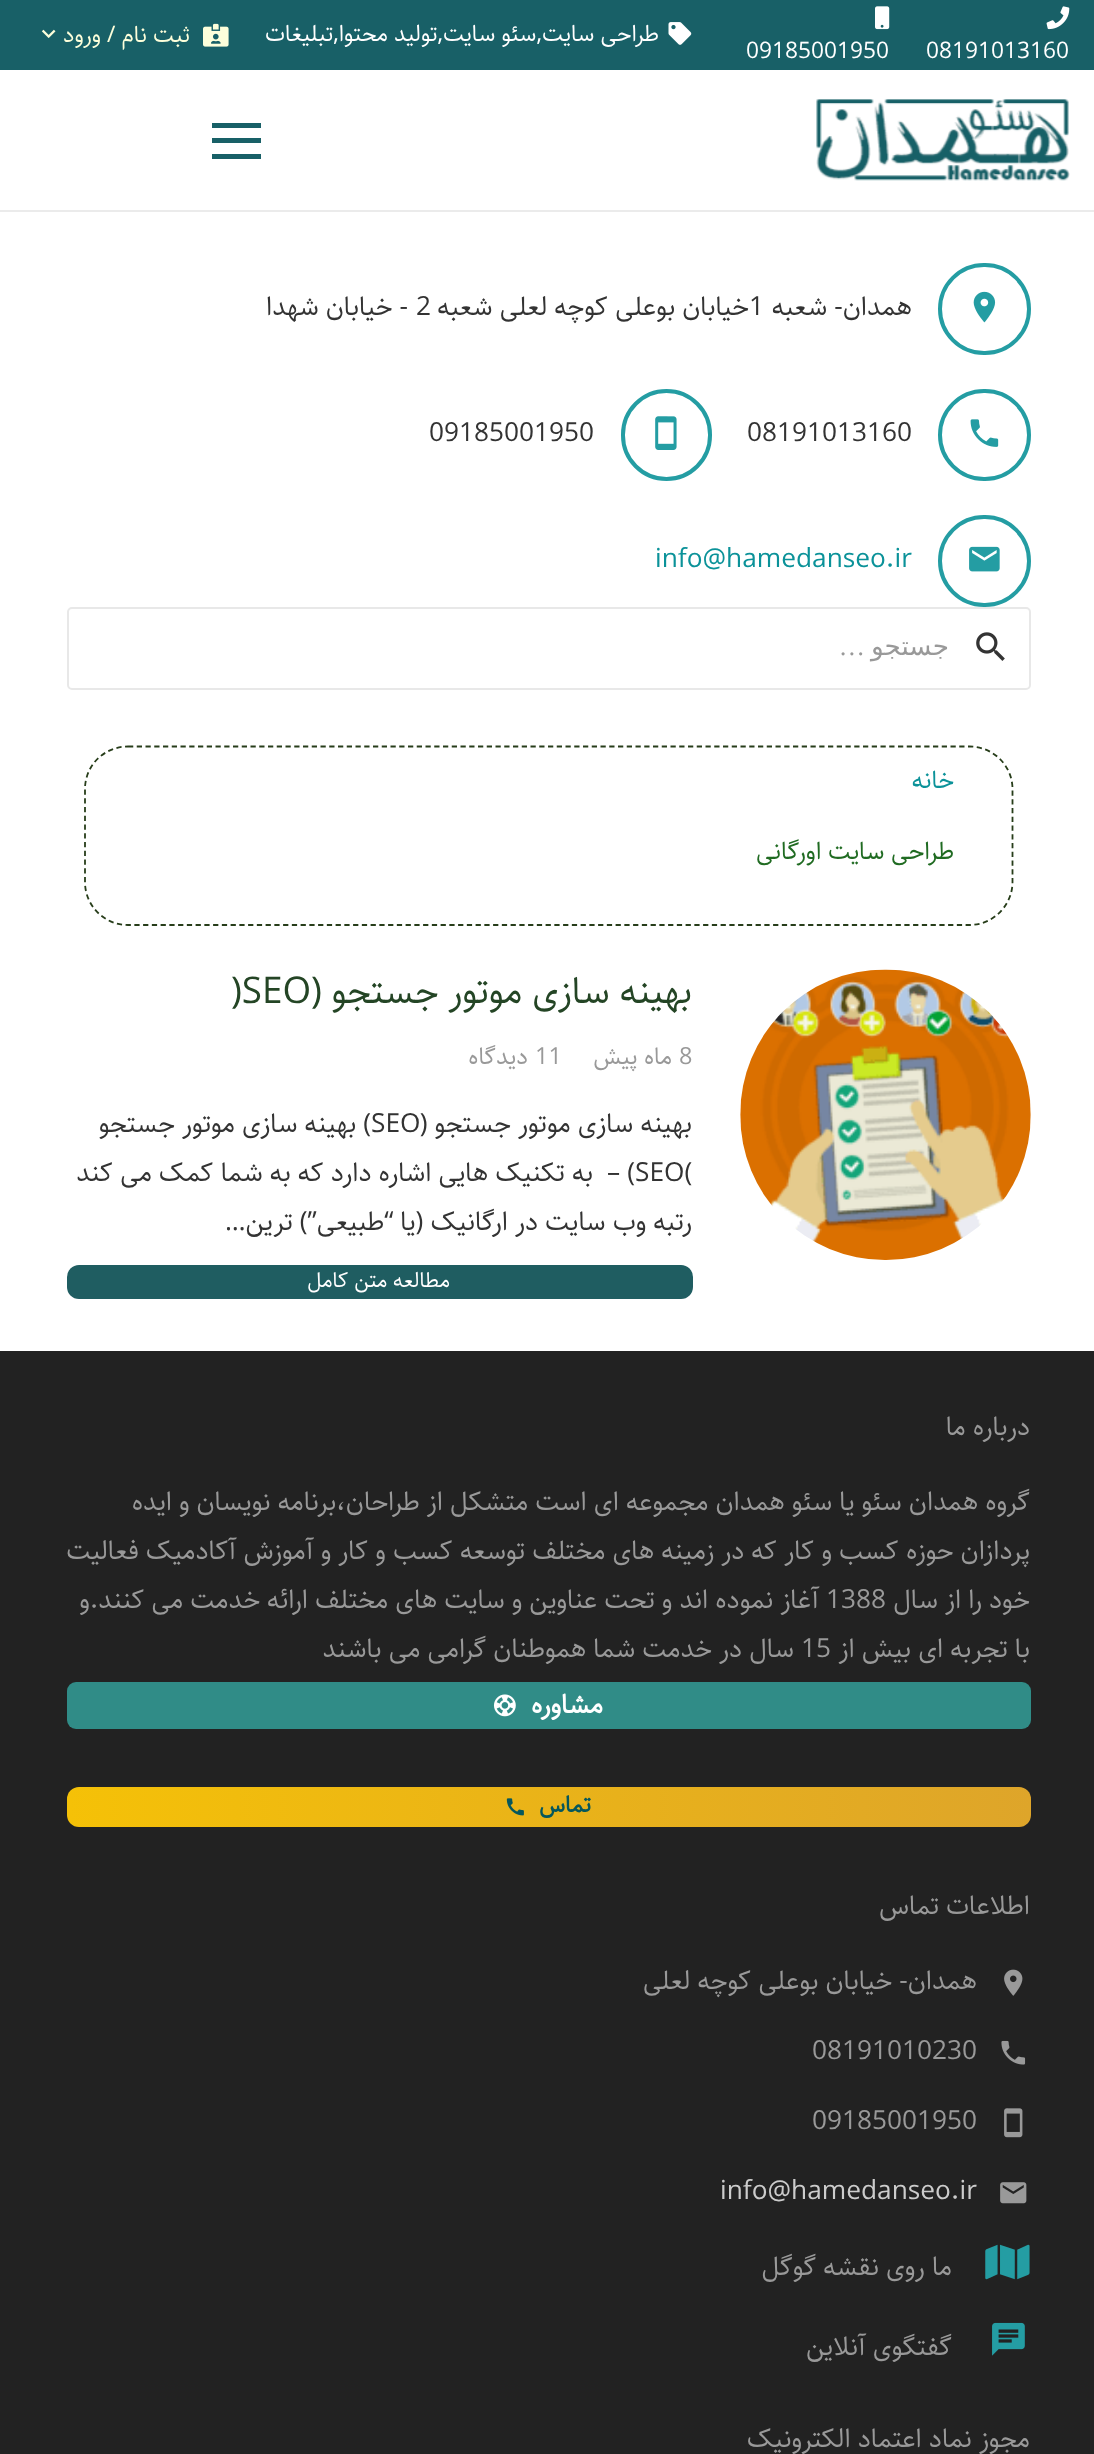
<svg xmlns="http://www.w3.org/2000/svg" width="1094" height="2454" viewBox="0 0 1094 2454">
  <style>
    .t1 { font: 22.75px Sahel; fill: #fff; }
    .t2 { font: 22.75px Sahel; direction: rtl; fill: #fff; }
    .t3 { font: 22.75px Sahel; direction: rtl; fill: #fdffdb; }
    .t4 { font: 26.25px Sahel; direction: rtl; fill: #333; }
    .t5 { font: 26.25px Sahel; fill: #333; }
    .t6 { font: 26.25px Sahel; fill: #0b9299; }
    .t7 { font: 26.25px DejaVu Sans; direction: rtl; fill: #999; }
    .t8 { font: 26.25px Liberation Serif; direction: rtl; fill: #999; }
    .t9 { font: 24.5px Sahel; direction: rtl; fill: #0b9299; }
    .t10 { font: 24.5px Sahel; direction: rtl; fill: #206b22; }
    .t11 { font: 36.75px Sahel; direction: rtl; fill: #244525; }
    .t12 { font: 36.75px Sahel; fill: #244525; }
    .t13 { font: 23.5px Sahel; fill: #999; }
    .t14 { font: 23.5px Sahel; direction: rtl; fill: #999; }
    .t15 { font: 21px Sahel; direction: rtl; fill: #fff; }
    .t16 { font: 26.25px Sahel; direction: rtl; fill: #999; }
    .t17 { font: 26.25px Sahel; fill: #999; }
    .t18 { font: bold 26.25px Sahel; direction: rtl; fill: #fff; }
    .t19 { font: bold 22.75px Sahel; direction: rtl; fill: #06575c; }
    .t20 { font: 26.25px Sahel; fill: #ccc; }
  </style>
  <defs>
    <linearGradient id="g1" gradientUnits="userSpaceOnUse" x1="67" y1="1807" x2="1031" y2="1807"><stop offset="0" stop-color="#f5c107"/><stop offset="1" stop-color="#dea52a"/></linearGradient>
  </defs>
  <rect width="100%" height="100%" fill="#fff"/>
  <rect x="0" y="0" width="1094" height="70" fill="#186067"/>
  <image x="1046" y="6" width="24" height="24" href="images/1.png"/>
  <text x="926" y="58" class="t1">08191013160</text>
  <image x="875" y="6" width="15" height="24" href="images/2.png"/>
  <text x="746" y="58" class="t1">09185001950</text>
  <image x="668" y="22" width="24" height="23" href="images/3.png"/>
  <text x="659" y="41" class="t2">طراحی سایت,سئو سایت,تولید محتوا,تبلیغات</text>
  <image x="203" y="23" width="26" height="24" href="images/4.png"/>
  <text x="190" y="42" class="t3">ثبت نام / ورود</text>
  <image x="41" y="29" width="15" height="9" href="images/5.png"/>
  <path d="M0 210V212H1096V72V210Z" fill="#ebebeb"/>
  <image x="816" y="99" width="254" height="82" href="images/6.png"/>
  <rect x="212" y="138" width="49" height="5" fill="#186067"/>
  <rect x="212" y="123" width="49" height="5" fill="#186067"/>
  <rect x="212" y="154" width="49" height="5" fill="#186067"/>
  <rect x="940" y="265" width="89" height="88" rx="44" fill="none" stroke="#249da3" stroke-width="4"/>
  <image x="973" y="291" width="23" height="32" href="images/7.png"/>
  <text x="912" y="315" class="t4">همدان- شعبه</text>
  <text x="749" y="315" class="t5">1</text>
  <text x="749" y="315" class="t4">خیابان بوعلی کوچه لعلی شعبه</text>
  <text x="416" y="315" class="t5">2</text>
  <text x="408" y="315" class="t4">- خیابان شهدا</text>
  <rect x="940" y="391" width="89" height="88" rx="44" fill="none" stroke="#249da3" stroke-width="4"/>
  <image x="970" y="419" width="29" height="28" href="images/8.png"/>
  <text x="747" y="441" class="t5">08191013160</text>
  <rect x="623" y="391" width="87" height="88" rx="43.5" fill="none" stroke="#249da3" stroke-width="4"/>
  <image x="655" y="416" width="22" height="34" href="images/9.png"/>
  <text x="429" y="441" class="t5">09185001950</text>
  <rect x="940" y="517" width="89" height="88" rx="44" fill="none" stroke="#249da3" stroke-width="4"/>
  <image x="969" y="546" width="31" height="26" href="images/10.png"/>
  <text x="655" y="567" class="t6">info@hamedanseo.ir</text>
  <rect x="68" y="608" width="962" height="81" rx="4" fill="none" stroke="#e8e8e8" stroke-width="2"/>
  <image x="976" y="632" width="29" height="29" href="images/11.png"/>
  <text x="949" y="655" class="t7">جستجو</text>
  <text x="865" y="655" class="t8">…</text>
  <path d="M128 746.5H969.5C993 746.5 1012.5 765.5 1012.5 789V882C1012.5 905.5 993 925 969.5 925H128C104 925 85 905.5 85 882V789C85 765.5 104 746.5 128 746.5Z" fill="none" stroke="#273d1a" stroke-width="1.8" stroke-dasharray="5.25 3.5"/>
  <text x="954" y="788" class="t9">خانه</text>
  <text x="954" y="859" class="t10">طراحی سایت اورگانی</text>
  <image x="740" y="969" width="291" height="291" href="images/12.png"/>
  <text x="692" y="1003" class="t11">بهینه سازی موتور جستجو (</text>
  <text x="231" y="1003" class="t12">)SEO</text>
  <text x="679" y="1064" class="t13">8</text>
  <text x="672" y="1064" class="t14">ماه پیش</text>
  <text x="535" y="1064" class="t13">11</text>
  <text x="528" y="1064" class="t14">دیدگاه</text>
  <text x="692" y="1132" class="t4">بهینه سازی موتور جستجو (</text>
  <text x="371" y="1132" class="t5">SEO</text>
  <text x="371" y="1132" class="t4">) بهینه سازی موتور جستجو</text>
  <text x="635" y="1181" class="t5">SEO(</text>
  <text x="635" y="1181" class="t4" xml:space="preserve">) –  به تکنیک هایی اشاره دارد که به شما کمک می کند</text>
  <text x="692" y="1230" class="t4">رتبه وب سایت در ارگانیک (یا “طبیعی”) ترین…</text>
  <rect x="67" y="1265" width="626" height="34" rx="12" fill="#1f5d61"/>
  <text x="450" y="1287" class="t15">مطالعه متن کامل</text>
  <rect x="0" y="1351" width="1094" height="1103" fill="#222"/>
  <text x="1030" y="1435" class="t16">درباره ما</text>
  <text x="1030" y="1510" class="t16">گروه همدان سئو یا سئو همدان مجموعه ای است متشکل از طراحان،برنامه نویسان و ایده</text>
  <text x="1030" y="1559" class="t16">پردازان حوزه کسب و کار که در زمینه های مختلف توسعه کسب و کار و آموزش آکادمیک فعالیت</text>
  <text x="1030" y="1608" class="t16">خود را از سال</text>
  <text x="826" y="1608" class="t17">1388</text>
  <text x="819" y="1608" class="t16">آغاز نموده اند و تحت عناوین و سایت های مختلف ارائه خدمت می کنند.و</text>
  <text x="1030" y="1657" class="t16">با تجربه ای بیش از</text>
  <text x="801" y="1657" class="t17">15</text>
  <text x="794" y="1657" class="t16">سال در خدمت شما هموطنان گرامی می باشند</text>
  <rect x="67" y="1682" width="964" height="47" rx="9" fill="#308c87"/>
  <text x="603" y="1713" class="t18">مشاوره</text>
  <image x="493" y="1694" width="23" height="23" href="images/13.png"/>
  <rect x="67" y="1787" width="964" height="40" rx="12" fill="url(#g1)"/>
  <text x="591" y="1812" class="t19">تماس</text>
  <image x="506" y="1798" width="18" height="18" href="images/14.png"/>
  <text x="1030" y="1914" class="t16">اطلاعات تماس</text>
  <image x="1004" y="1969" width="19" height="27" href="images/15.png"/>
  <text x="977" y="1989" class="t16">همدان- خیابان بوعلی کوچه لعلی</text>
  <image x="1001" y="2040" width="25" height="25" href="images/16.png"/>
  <text x="812" y="2059" class="t17">08191010230</text>
  <image x="1004" y="2108" width="19" height="30" href="images/17.png"/>
  <text x="812" y="2129" class="t17">09185001950</text>
  <image x="1000" y="2182" width="27" height="22" href="images/18.png"/>
  <text x="720" y="2199" class="t20">info@hamedanseo.ir</text>
  <image x="985" y="2244" width="45" height="36" href="images/19.png"/>
  <text x="952" y="2275" class="t16">ما روی نقشه گوگل</text>
  <image x="992" y="2322" width="33" height="34" href="images/20.png"/>
  <text x="952" y="2355" class="t16">گفتگوی آنلاین</text>
  <text x="1030" y="2447" class="t16">مجوز نماد اعتماد الکترونیک</text>
</svg>
